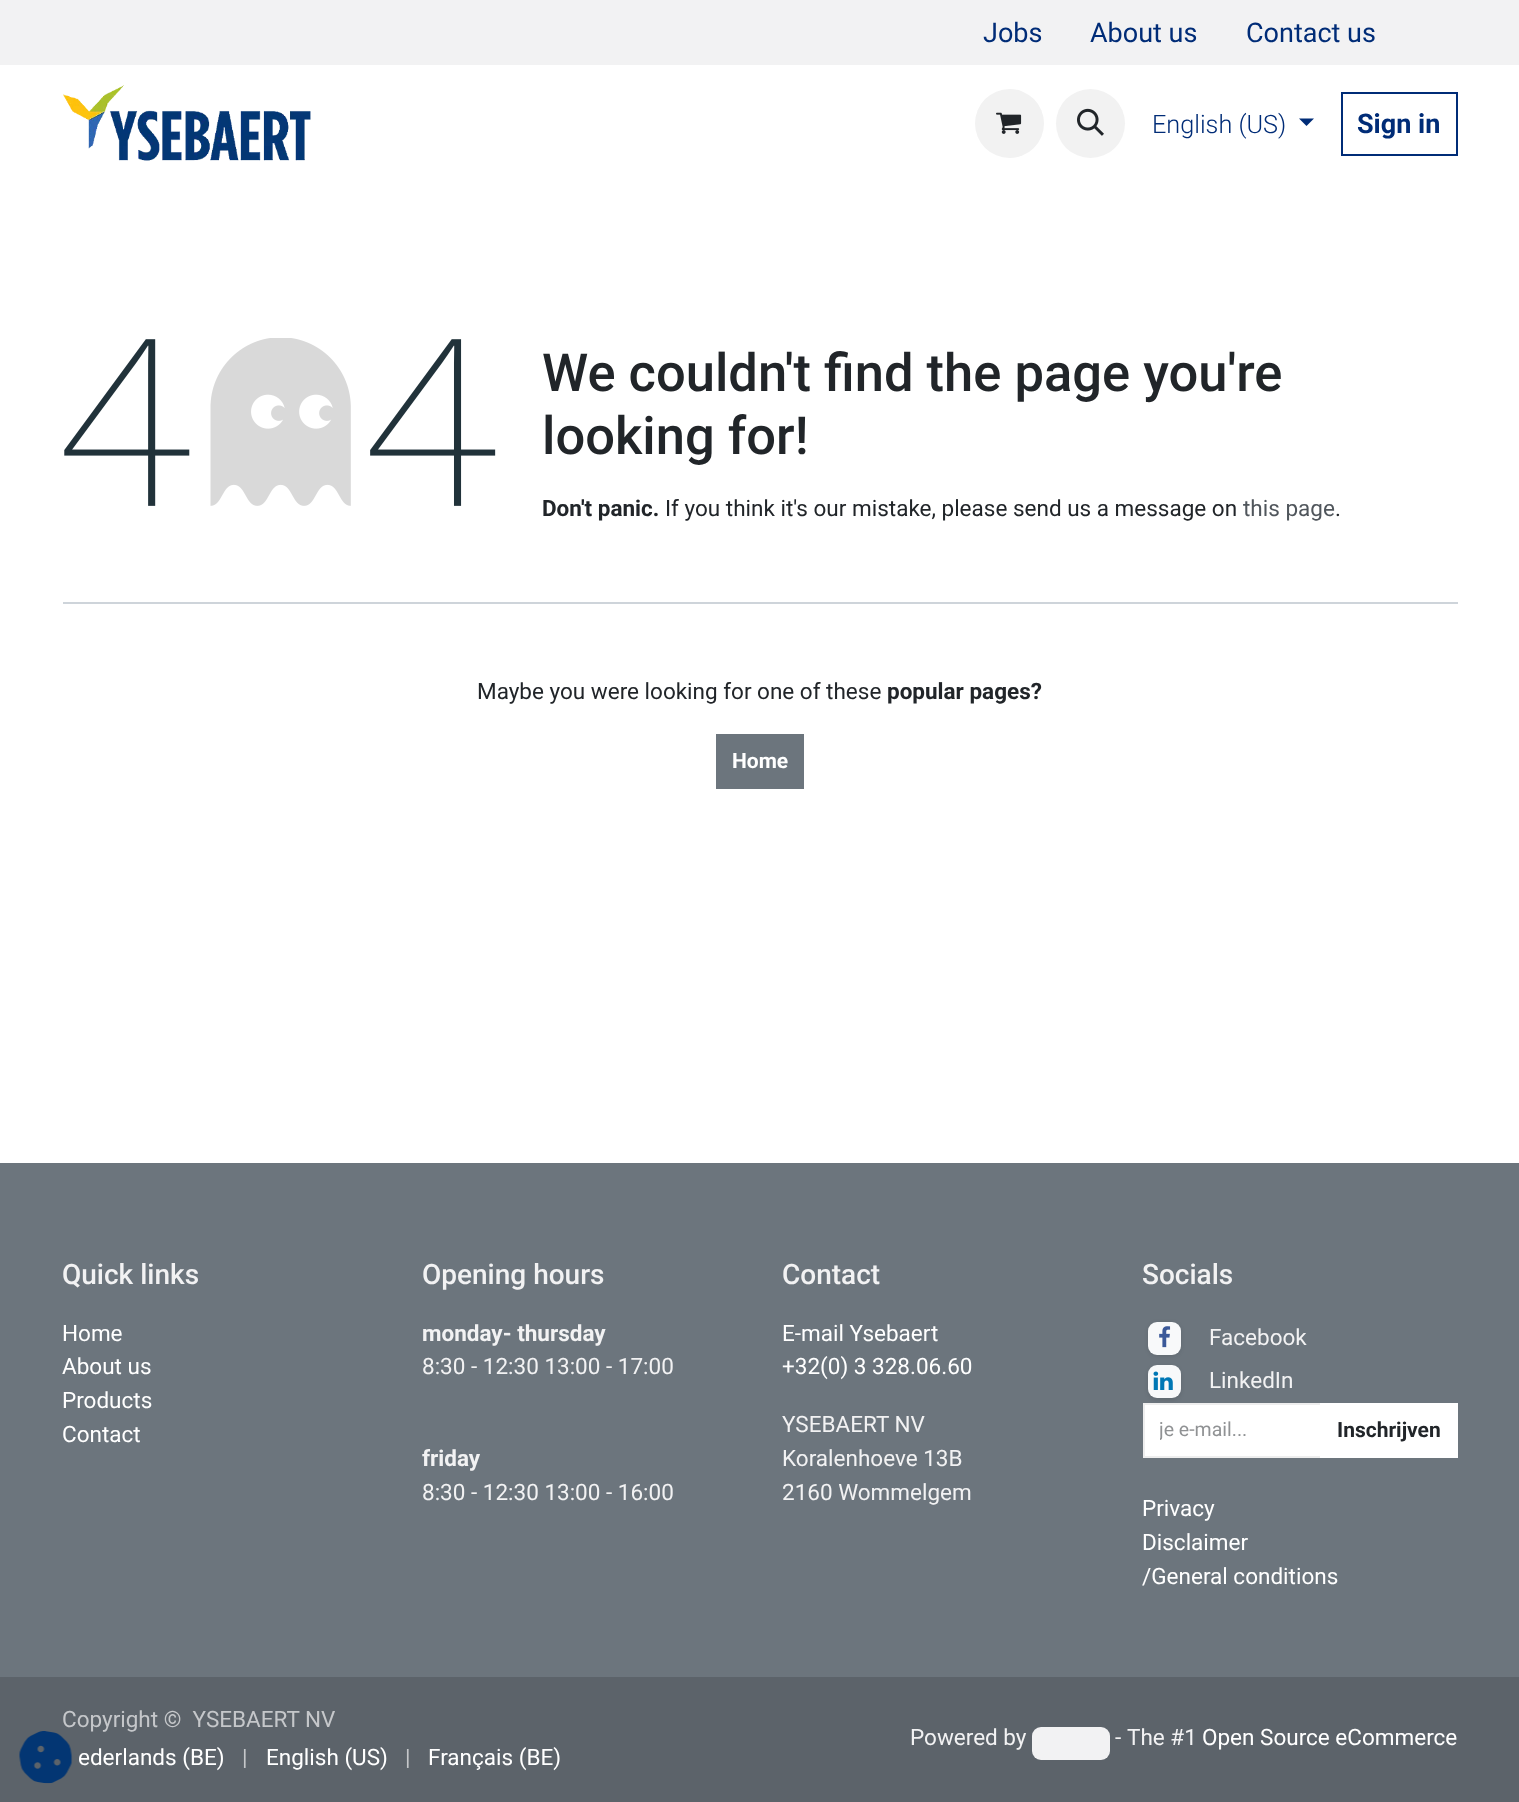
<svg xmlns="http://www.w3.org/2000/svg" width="1519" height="1802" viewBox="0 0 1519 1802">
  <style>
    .t1 { font: 27px Roboto; fill: #002c77; }
    .t2 { font: 300 25.25px Roboto; fill: #002c77; }
    .t3 { font: bold 27px Roboto; fill: #002c77; }
    .t4 { font: 500 52.5px Roboto; fill: #212529; }
    .t5 { font: bold 22.5px Roboto; fill: #212529; }
    .t6 { font: 22.5px Roboto; fill: #212529; }
    .t7 { font: 22.5px Roboto; fill: #50565c; }
    .t8 { font: bold 21px Roboto; fill: #fff; }
    .t9 { font: 22.5px Roboto; fill: #c5c7ca; }
    .t10 { font: 500 28px Roboto; fill: #f2f2f3; }
    .t11 { font: 22.5px Roboto; fill: #fff; }
    .t12 { font: bold 22.5px Roboto; fill: #f2f2f3; }
    .t13 { font: 22.5px Roboto; fill: #f2f2f3; }
    .t14 { font: 19.5px Roboto; fill: #909294; }
    .t15 { font: bold 21px Roboto; fill: #212529; }
  </style>
  <defs>
    <clipPath id="clip1"><rect x="1160" y="1418" width="145" height="22"/></clipPath>
  </defs>
  <rect width="100%" height="100%" fill="#fff"/>
  <rect x="0" y="0" width="1519" height="65" fill="#f2f2f3"/>
  <text x="983" y="42" class="t1">Jobs</text>
  <text x="1090" y="42" class="t1">About us</text>
  <text x="1246" y="42" class="t1">Contact us</text>
  <image x="63" y="85" width="248" height="76" href="images/1.png"/>
  <circle cx="1009.5" cy="123.5" r="34.5" fill="#f2f2f2"/>
  <image x="996" y="112" width="26" height="22" href="images/2.png"/>
  <circle cx="1090.5" cy="123.5" r="34.5" fill="#f2f2f2"/>
  <image x="1077" y="108" width="27" height="28" href="images/3.png"/>
  <text x="1152" y="133" class="t2">English (US)</text>
  <path d="M1299 118.5H1314L1306.5 126Z" fill="#002c77"/>
  <rect x="1342" y="93" width="115" height="62" fill="none" stroke="#002c77" stroke-width="2"/>
  <text x="1357" y="133" class="t3">Sign in</text>
  <image x="64" y="338" width="432" height="168" href="images/4.png"/>
  <text x="542" y="391" class="t4">We couldn't find the page you're</text>
  <text x="542" y="454" class="t4">looking for!</text>
  <text x="542" y="516" class="t5">Don't panic.</text>
  <text x="665" y="516" class="t6">If you think it's our mistake, please send us a message on</text>
  <text x="1243" y="516" class="t7">this page</text>
  <text x="1335" y="516" class="t6">.</text>
  <rect x="63" y="602" width="1395" height="2" fill="#ced4da"/>
  <text x="477" y="699" class="t6">Maybe you were looking for one of these</text>
  <text x="887" y="699" class="t5">popular pages?</text>
  <rect x="716" y="734" width="88" height="55" fill="#6c757d"/>
  <text x="732" y="768" class="t8">Home</text>
  <rect x="0" y="1677" width="1519" height="125" fill="#5c636a"/>
  <text x="62" y="1727" class="t9" xml:space="preserve">Copyright ©  YSEBAERT NV</text>
  <image x="19" y="1731" width="54" height="53" href="images/5.png"/>
  <rect x="0" y="1163" width="1519" height="514" fill="#6c757d"/>
  <text x="62" y="1284" class="t10">Quick links</text>
  <text x="62" y="1341" class="t11">Home</text>
  <text x="62" y="1374" class="t11">About us</text>
  <text x="62" y="1408" class="t11">Products</text>
  <text x="62" y="1442" class="t11">Contact</text>
  <text x="422" y="1284" class="t10">Opening hours</text>
  <text x="422" y="1341" class="t12">monday- thursday</text>
  <text x="422" y="1374" class="t13">8:30 - 12:30 13:00 - 17:00</text>
  <text x="422" y="1466" class="t12">friday</text>
  <text x="422" y="1500" class="t13">8:30 - 12:30 13:00 - 16:00</text>
  <text x="782" y="1284" class="t10">Contact</text>
  <text x="782" y="1341" class="t11">E-mail Ysebaert</text>
  <text x="782" y="1374" class="t11">+32(0) 3 328.06.60</text>
  <text x="782" y="1432" class="t13">YSEBAERT NV</text>
  <text x="782" y="1466" class="t13">Koralenhoeve 13B</text>
  <text x="782" y="1500" class="t13">2160 Wommelgem</text>
  <text x="1142" y="1284" class="t10">Socials</text>
  <rect x="1148" y="1323" width="33" height="33" rx="9" fill="#0000001a" filter="blur(2px)"/>
  <rect x="1148" y="1322" width="33" height="33" rx="9" fill="#f8f9fa"/>
  <image x="1159" y="1326" width="12" height="22" href="images/6.png"/>
  <text x="1209" y="1345" class="t13">Facebook</text>
  <rect x="1148" y="1367" width="33" height="33" rx="9" fill="#0000001a" filter="blur(2px)"/>
  <rect x="1148" y="1365" width="33" height="33" rx="9" fill="#f8f9fa"/>
  <image x="1153" y="1371" width="20" height="19" href="images/7.png"/>
  <text x="1209" y="1388" class="t13">LinkedIn</text>
  <rect x="1144" y="1404" width="177" height="53" fill="#fff" stroke="#eee" stroke-width="2"/>
  <g clip-path="url(#clip1)">
    <text x="1159" y="1436" class="t14">je e-mail...</text>
  </g>
  <rect x="1320" y="1403" width="138" height="55" fill="#fff"/>
  <text x="1337" y="1437" class="t15">Inschrijven</text>
  <text x="1142" y="1516" class="t11">Privacy</text>
  <text x="1142" y="1550" class="t11">Disclaimer</text>
  <text x="1142" y="1584" class="t11">/General conditions</text>
  <text x="78" y="1765" class="t11">ederlands (BE)</text>
  <text x="242" y="1765" class="t9">|</text>
  <text x="266" y="1765" class="t11">English (US)</text>
  <text x="405" y="1765" class="t9">|</text>
  <text x="428" y="1765" class="t11">Français (BE)</text>
  <text x="910" y="1745" class="t13">Powered by</text>
  <rect x="1032" y="1727" width="78" height="33" rx="9" fill="#f2f2f3"/>
  <text x="1115" y="1745" class="t13">-</text>
  <text x="1127" y="1745" class="t13">The #1</text>
  <text x="1202" y="1745" class="t11">Open Source eCommerce</text>
</svg>
